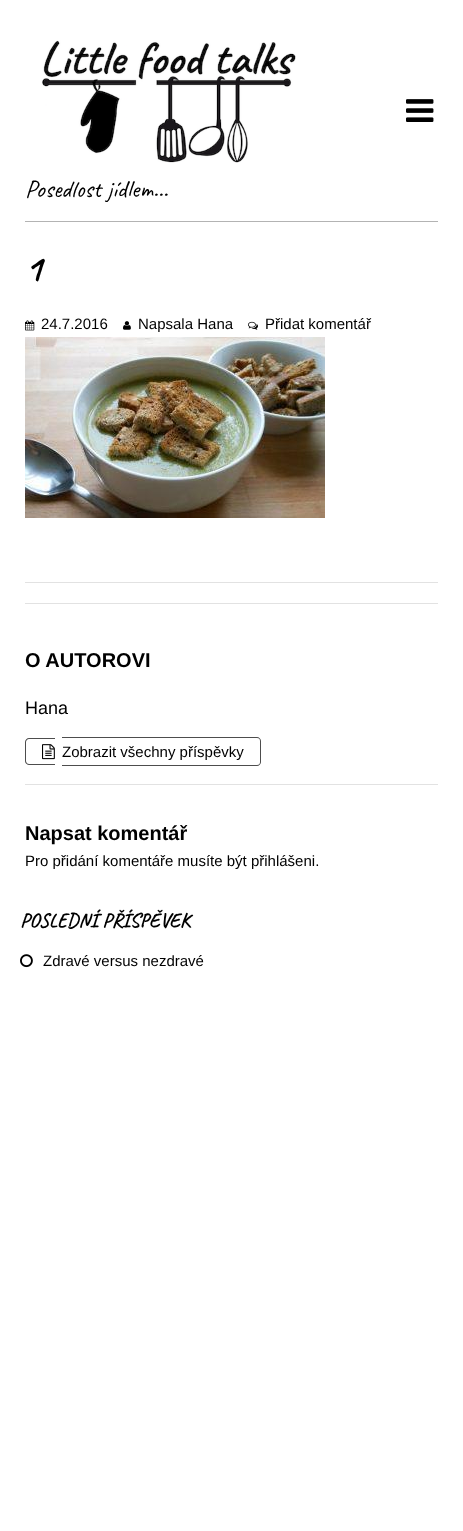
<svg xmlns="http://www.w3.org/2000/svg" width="463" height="1531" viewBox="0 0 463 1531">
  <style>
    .t1 { font: 25px Caveat; fill: #000; }
    .t2 { font: bold 38px Caveat; fill: #000; }
    .t3 { font: 15px Liberation Sans; fill: #000; }
    .t4 { font: bold 20px Liberation Sans; fill: #000; }
    .t5 { font: 18px Liberation Sans; fill: #000; }
    .t6 { font: bold 20px Caveat; fill: #000; }
  </style>
  <rect width="100%" height="100%" fill="#fff"/>
  <image x="406" y="99" width="28" height="23" href="images/1.png"/>
  <image x="41" y="40" width="255" height="123" href="images/2.png"/>
  <text x="25" y="197" class="t1">Posedlost jídlem…</text>
  <rect x="25" y="221" width="413" height="1" fill="#b3b3b3"/>
  <text x="25" y="281" class="t2">1</text>
  <image x="25" y="320" width="10" height="11" href="images/3.png"/>
  <text x="41" y="329" class="t3">24.7.2016</text>
  <image x="123" y="321" width="8" height="9" href="images/4.png"/>
  <text x="138" y="329" class="t3">Napsala Hana</text>
  <image x="248" y="321" width="10" height="9" href="images/5.png"/>
  <text x="265" y="329" class="t3">Přidat komentář</text>
  <image x="25" y="337" width="300" height="181" href="images/6.png"/>
  <rect x="25" y="582" width="413" height="1" fill="#e2e2e2"/>
  <rect x="25" y="603" width="413" height="1" fill="#e2e2e2"/>
  <text x="25" y="667" class="t4">O AUTOROVI</text>
  <text x="25" y="714" class="t5">Hana</text>
  <path d="M29 738H55V765H29C27 765 25 763 25 761V742C25 740 27 738 29 738ZM29 739H55V764H29C27.5 764 26 762.5 26 761V742C26 740.5 27.5 739 29 739Z" fill="#4d4d4d" fill-rule="evenodd"/>
  <image x="42" y="744" width="13" height="16" href="images/7.png"/>
  <path d="M62 737H257C259 737 261 739 261 741V762C261 764 259 766 257 766H62ZM62 738H257C259 738 260 739 260 741V762C260 764 259 765 257 765H62Z" fill="#4d4d4d" fill-rule="evenodd"/>
  <text x="62" y="757" class="t3">Zobrazit všechny příspěvky</text>
  <rect x="25" y="784" width="413" height="1" fill="#e2e2e2"/>
  <text x="25" y="840" class="t4">Napsat komentář</text>
  <text x="25" y="866" class="t3">Pro přidání komentáře musíte být přihlášeni.</text>
  <text x="20" y="927" class="t6">POSLEDNÍ PŘÍSPĚVEK</text>
  <image x="20" y="954" width="13" height="14" href="images/8.png"/>
  <text x="43" y="966" class="t3">Zdravé versus nezdravé</text>
</svg>
